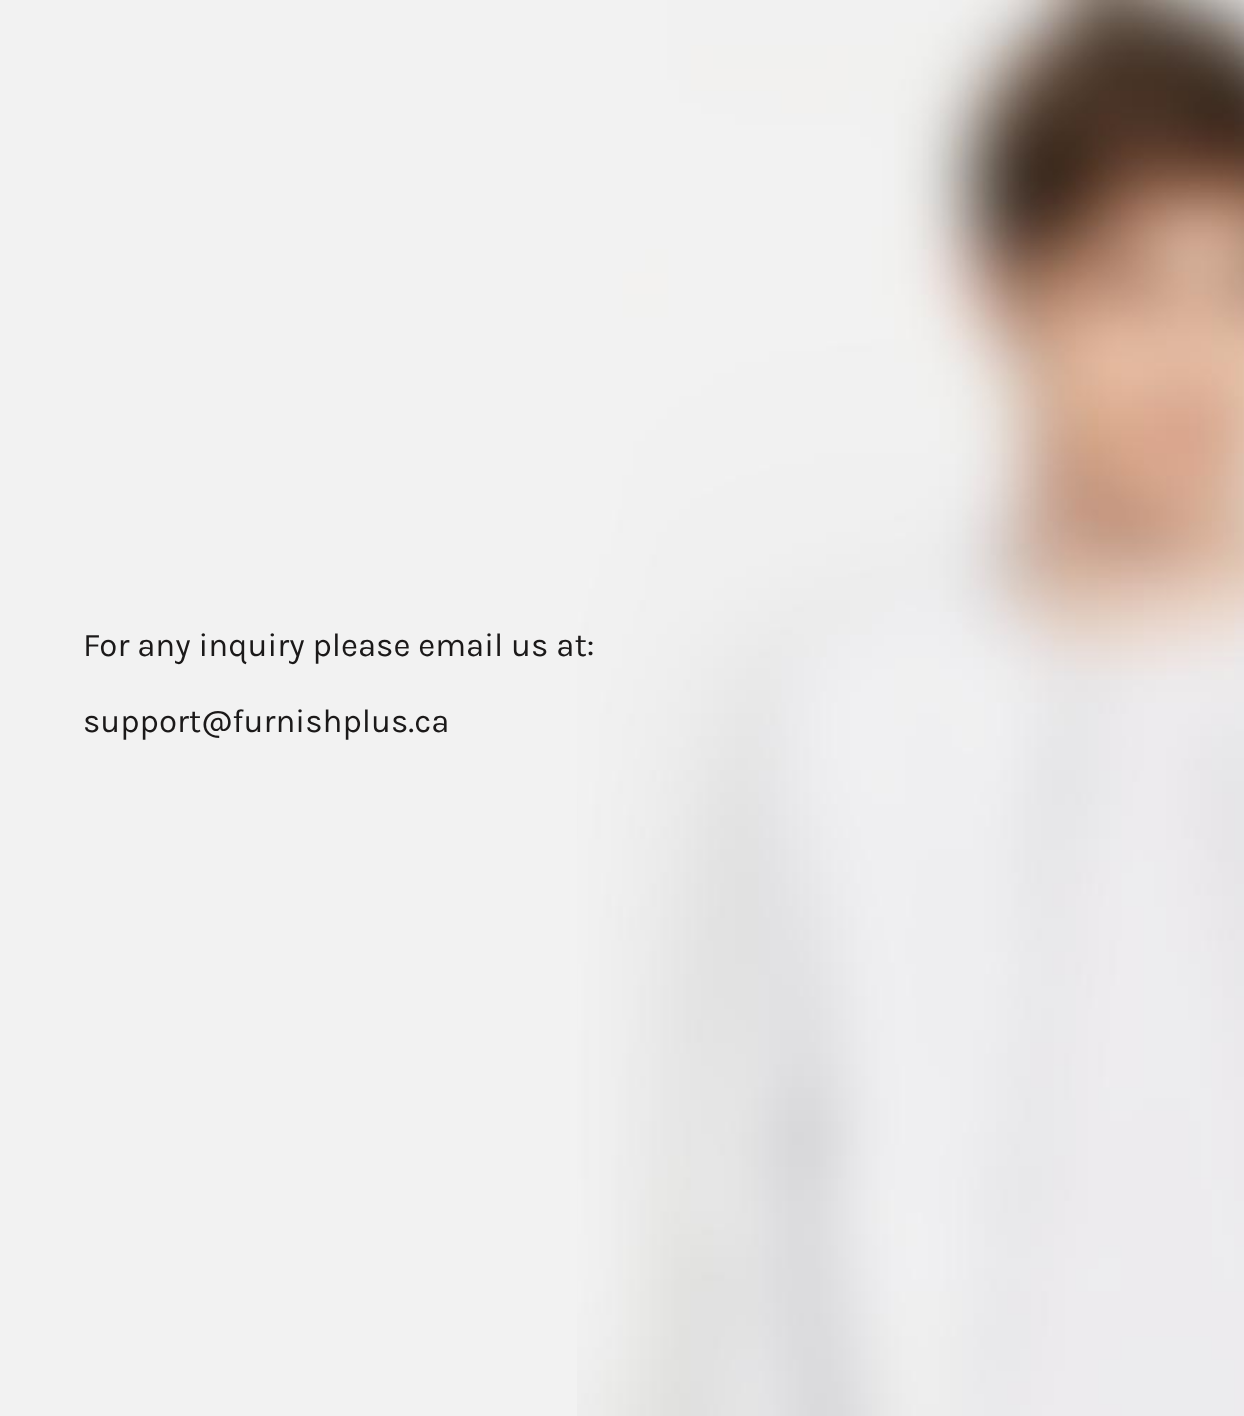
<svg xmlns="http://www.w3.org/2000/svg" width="1244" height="1416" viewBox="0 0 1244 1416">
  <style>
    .t1 { font: 33px Karla; fill: #1b1919; }
  </style>
  <rect width="100%" height="100%" fill="#f2f2f2"/>
  <image x="577" y="0" width="667" height="1416" href="images/1.png"/>
  <text x="83" y="656" class="t1">For any inquiry please email us at:</text>
  <text x="83" y="732" class="t1">support@furnishplus.ca</text>
</svg>
